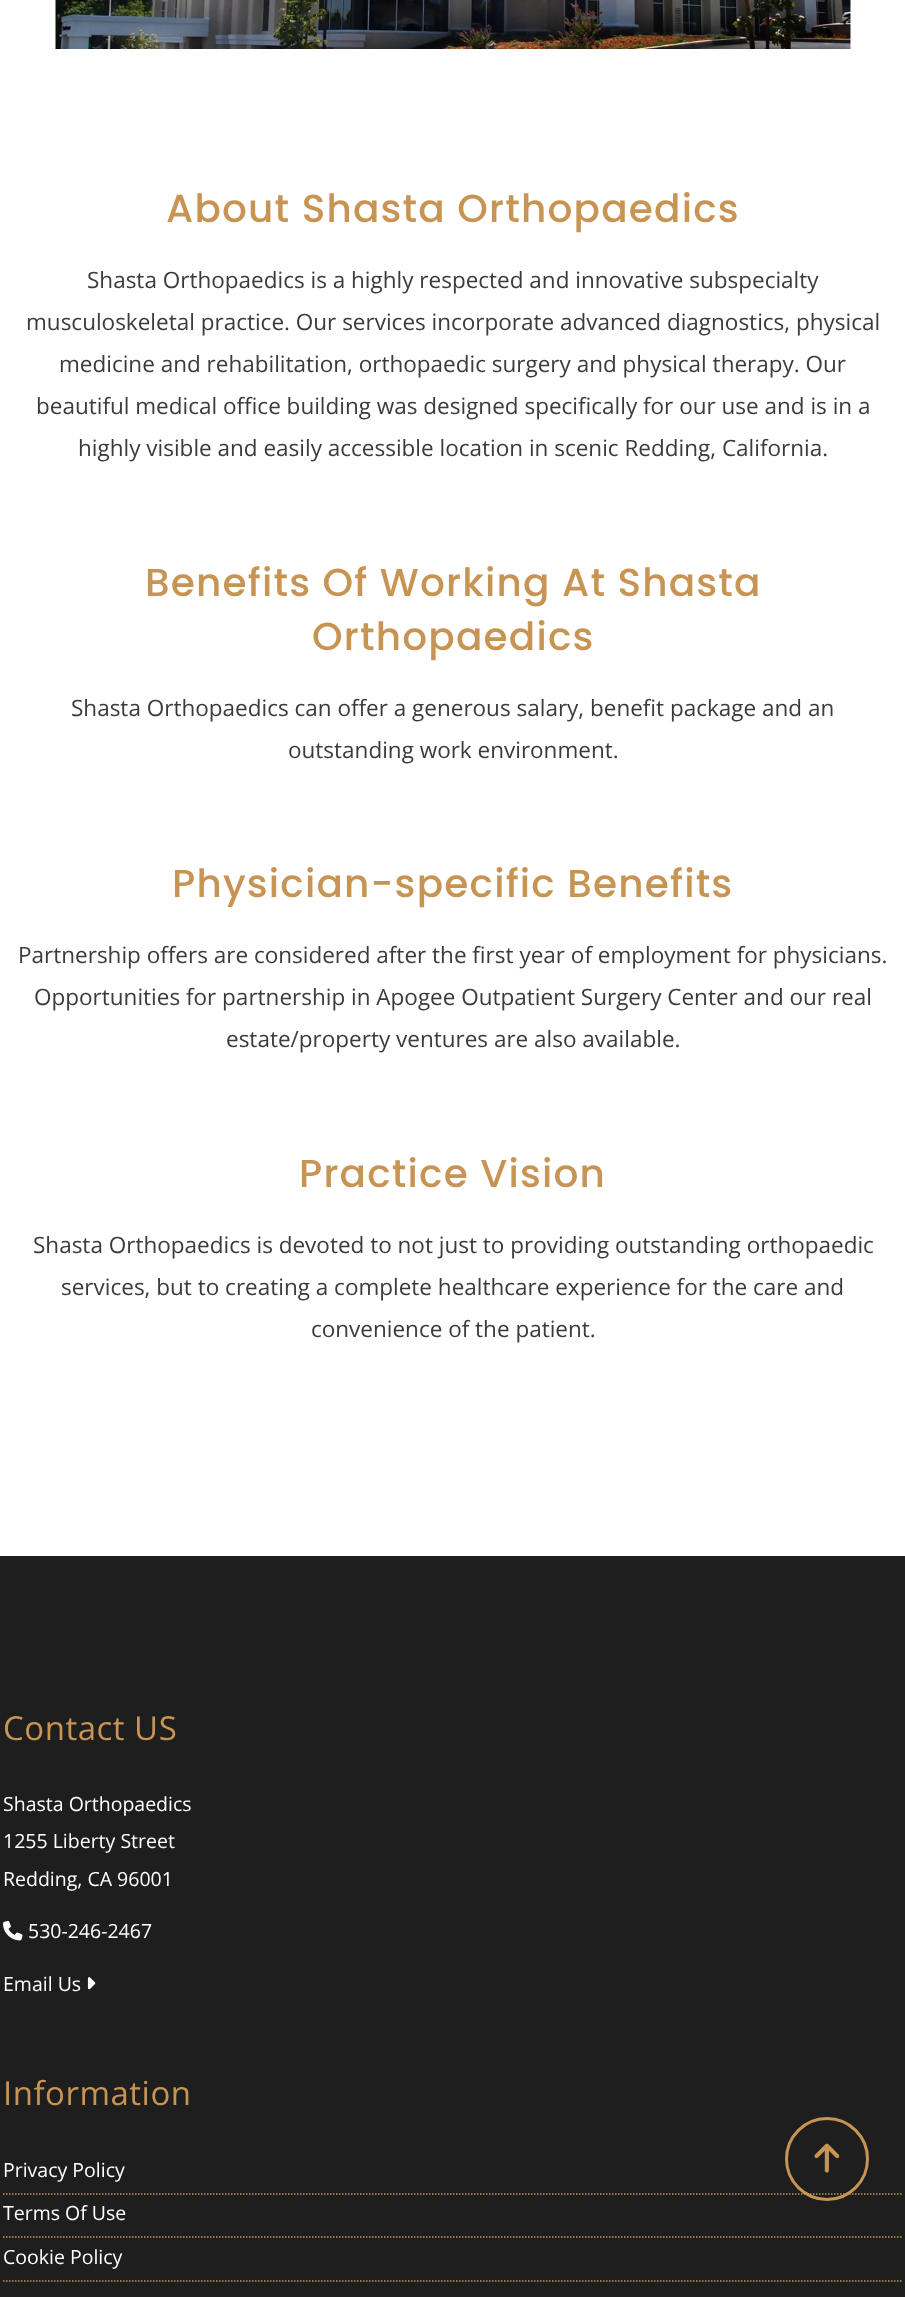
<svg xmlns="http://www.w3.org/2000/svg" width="905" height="2297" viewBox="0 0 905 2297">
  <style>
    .t1 { font: 500 39px Poppins; letter-spacing: 1.2px; fill: #c89454; }
    .t2 { font: 22.5px Open Sans; fill: #3e3a3b; }
    .t3 { font: 33px Open Sans; letter-spacing: 0.5px; fill: #c89454; }
    .t4 { font: 19.5px Open Sans; fill: #fff; }
  </style>
  <rect width="100%" height="100%" fill="#fff"/>
  <image x="55" y="0" width="796" height="49" href="images/1.png"/>
  <text x="166" y="222" class="t1">About Shasta Orthopaedics</text>
  <text x="87" y="288" class="t2">Shasta Orthopaedics is a highly respected and innovative subspecialty</text>
  <text x="26" y="330" class="t2">musculoskeletal practice. Our services incorporate advanced diagnostics, physical</text>
  <text x="59" y="372" class="t2">medicine and rehabilitation, orthopaedic surgery and physical therapy. Our</text>
  <text x="36" y="414" class="t2">beautiful medical office building was designed specifically for our use and is in a</text>
  <text x="78" y="456" class="t2">highly visible and easily accessible location in scenic Redding, California.</text>
  <text x="145" y="596" class="t1">Benefits Of Working At Shasta</text>
  <text x="312" y="650" class="t1">Orthopaedics</text>
  <text x="71" y="716" class="t2">Shasta Orthopaedics can offer a generous salary, benefit package and an</text>
  <text x="288" y="758" class="t2">outstanding work environment.</text>
  <text x="172" y="897" class="t1">Physician-specific Benefits</text>
  <text x="18" y="963" class="t2">Partnership offers are considered after the first year of employment for physicians.</text>
  <text x="34" y="1005" class="t2">Opportunities for partnership in Apogee Outpatient Surgery Center and our real</text>
  <text x="226" y="1047" class="t2">estate/property ventures are also available.</text>
  <text x="299" y="1187" class="t1">Practice Vision</text>
  <text x="33" y="1253" class="t2">Shasta Orthopaedics is devoted to not just to providing outstanding orthopaedic</text>
  <text x="61" y="1295" class="t2">services, but to creating a complete healthcare experience for the care and</text>
  <text x="311" y="1337" class="t2">convenience of the patient.</text>
  <rect x="0" y="1556" width="905" height="741" fill="#1f1e1e"/>
  <text x="3" y="1740" class="t3">Contact US</text>
  <text x="3" y="1811" class="t4">Shasta Orthopaedics</text>
  <text x="3" y="1848" class="t4">1255 Liberty Street</text>
  <text x="3" y="1886" class="t4">Redding, CA 96001</text>
  <image x="3" y="1920" width="20" height="21" href="images/2.png"/>
  <text x="28" y="1938" class="t4">530-246-2467</text>
  <text x="3" y="1991" class="t4">Email Us</text>
  <image x="87" y="1977" width="9" height="13" href="images/3.png"/>
  <text x="3" y="2105" class="t3">Information</text>
  <path d="M3 2194H903" fill="none" stroke="#c89454" stroke-width="1.5" stroke-dasharray="1.5 1.5"/>
  <text x="3" y="2177" class="t4">Privacy Policy</text>
  <path d="M3 2237H903" fill="none" stroke="#c89454" stroke-width="1.5" stroke-dasharray="1.5 1.5"/>
  <text x="3" y="2220" class="t4">Terms Of Use</text>
  <path d="M3 2281H903" fill="none" stroke="#c89454" stroke-width="1.5" stroke-dasharray="1.5 1.5"/>
  <text x="3" y="2264" class="t4">Cookie Policy</text>
  <circle cx="827" cy="2159" r="40.5" fill="none" stroke="#c89454" stroke-width="3"/>
  <image x="814" y="2143" width="26" height="30" href="images/4.png"/>
</svg>
